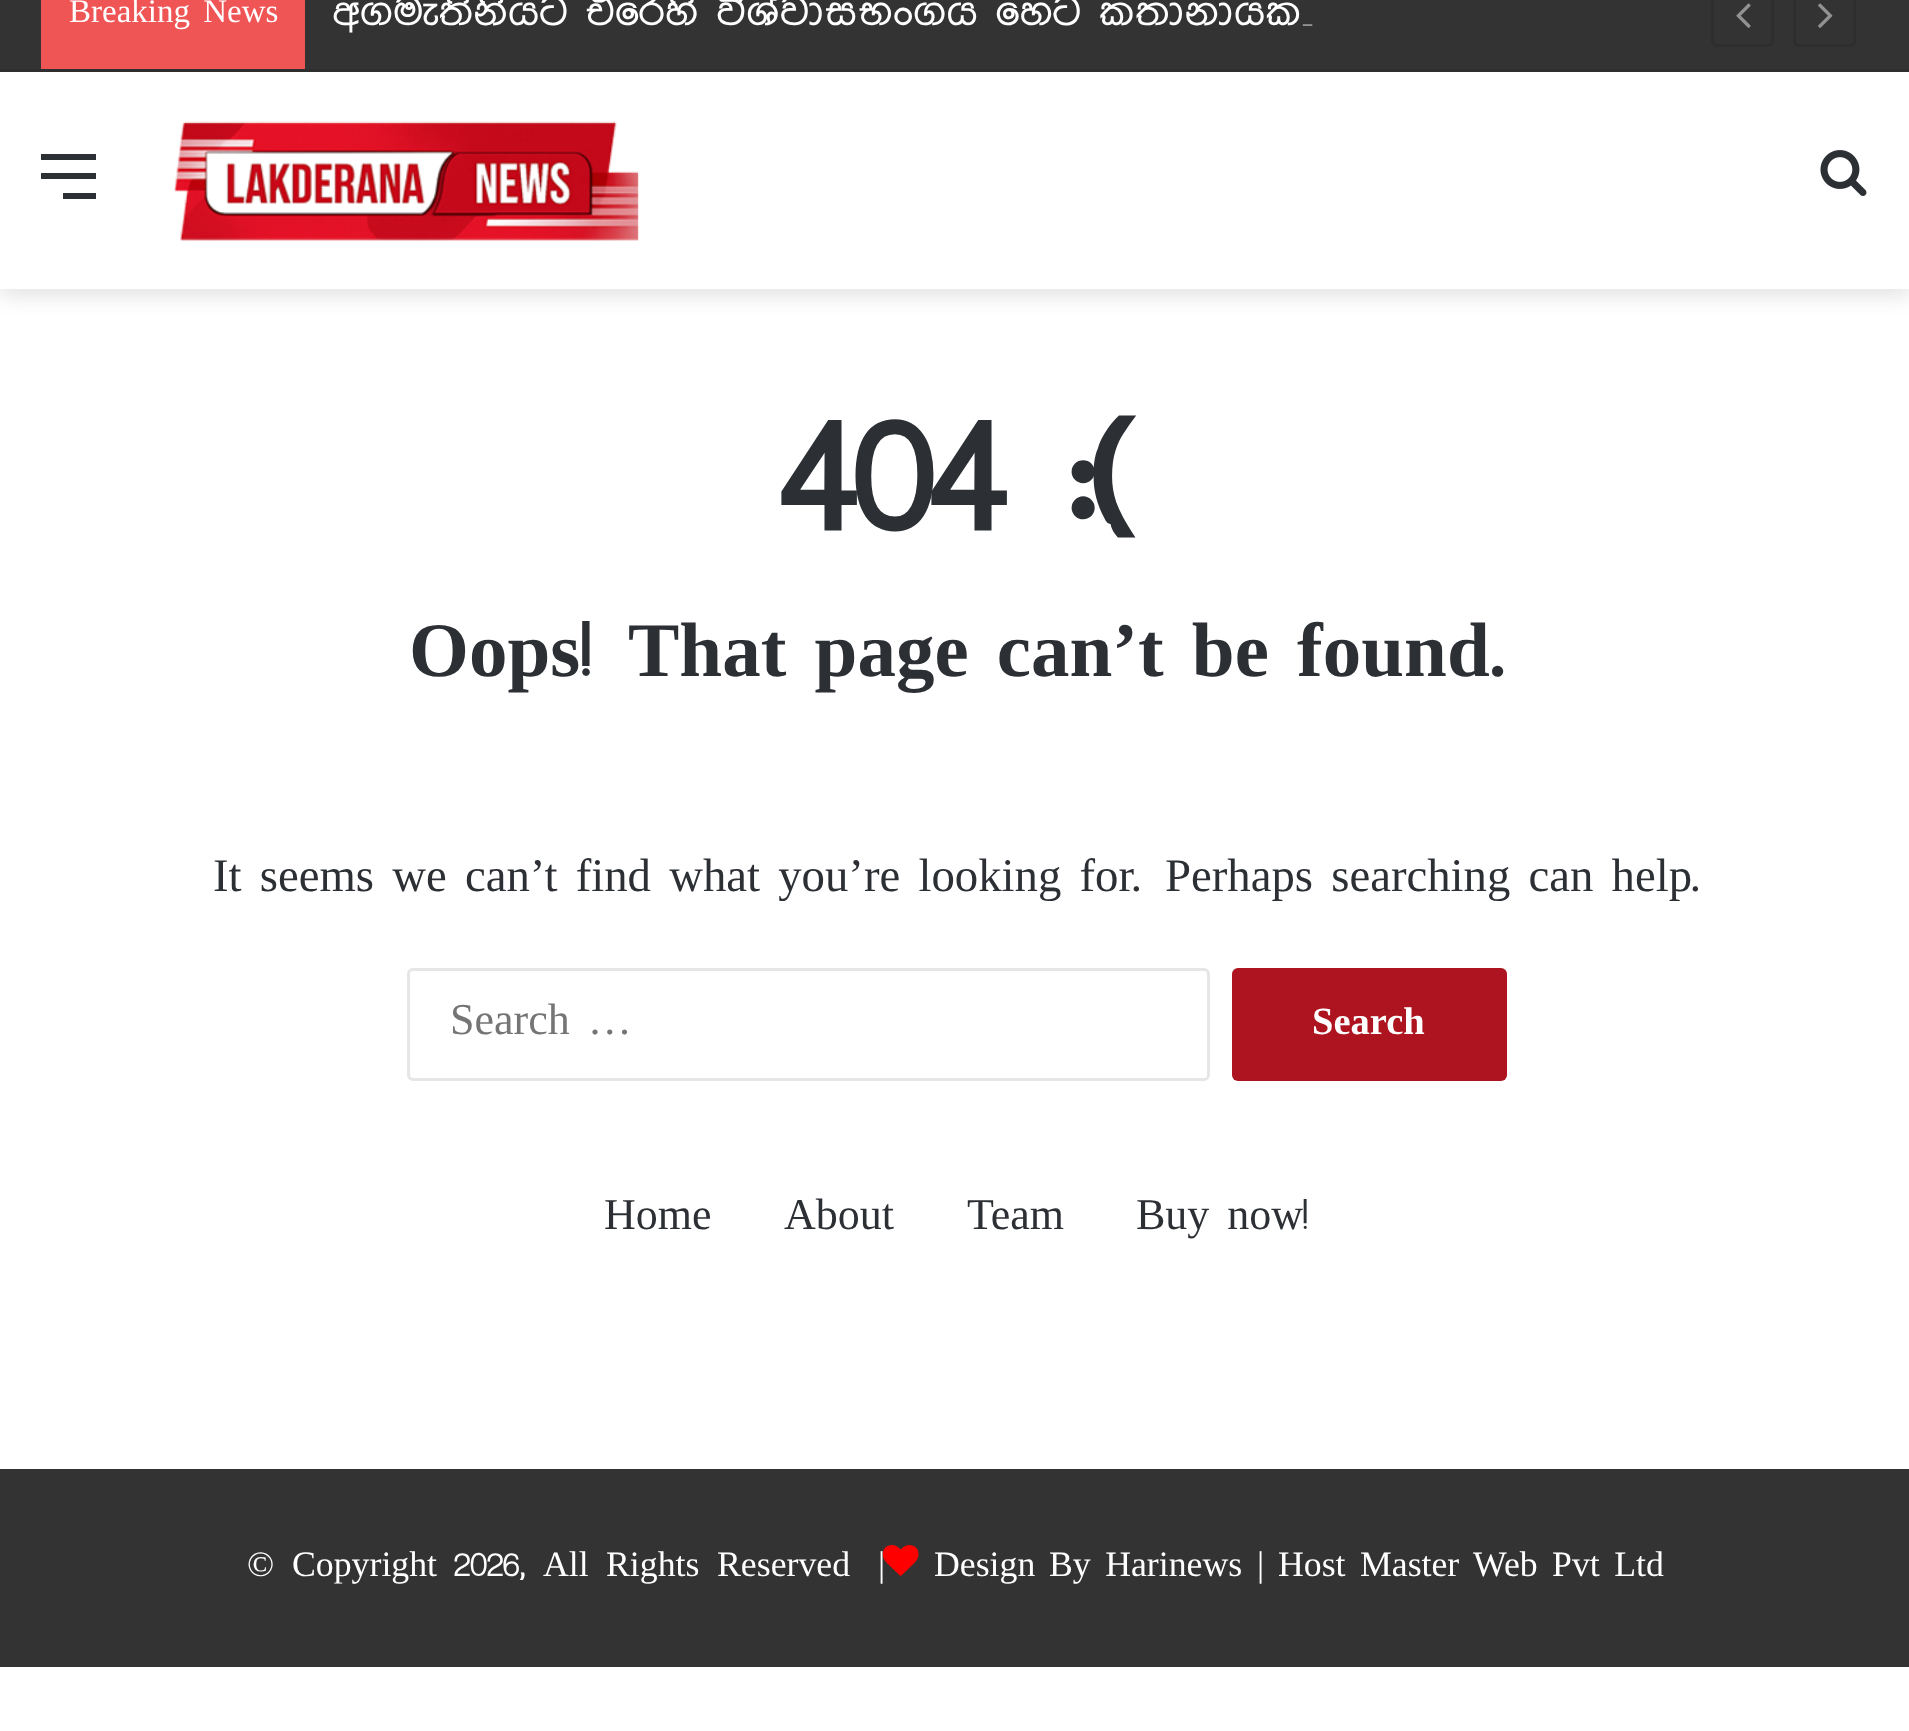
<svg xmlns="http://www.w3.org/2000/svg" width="1909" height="1731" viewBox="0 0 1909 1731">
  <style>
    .t1 { font: 33px Liberation Serif; fill: #fff; }
    .t2 { font: 44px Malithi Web; fill: #fff; }
    .t3 { font: 44px Malithi Web; fill: #aaa; }
    .t4 { font: bold 165px Malithi Web; fill: #2c2f34; }
    .t5 { font: bold 77px Liberation Serif; fill: #2c2f34; }
    .t6 { font: bold 77px Malithi Web; fill: #2c2f34; }
    .t7 { font: 46.75px Liberation Serif; fill: #2c2f34; }
    .t8 { font: 46.75px Malithi Web; fill: #2c2f34; }
    .t9 { font: 44px Liberation Serif; fill: #757575; }
    .t10 { font: bold 38.5px Liberation Serif; fill: #fff; }
    .t11 { font: 44px Liberation Serif; fill: #2c2f34; }
    .t12 { font: 44px Malithi Web; fill: #2c2f34; }
    .t13 { font: 35.75px Liberation Serif; fill: #fff; }
    .t14 { font: 35.75px Malithi Web; fill: #fff; }
  </style>
  <rect width="100%" height="100%" fill="#fff"/>
  <rect x="0" y="80" width="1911" height="217" fill="#0000001a" filter="blur(9.5px)"/>
  <rect x="0" y="0" width="1909" height="69" fill="#333"/>
  <rect x="0" y="69" width="1909" height="3" fill="#2e2e2e"/>
  <rect x="41" y="0" width="264" height="69" fill="#f05555"/>
  <text x="69" y="22" word-spacing="5" class="t1">Breaking News</text>
  <text x="333" y="25" class="t2">අගමැතිනියට එරෙහි විශ්වාසභංගය හෙට කතානායක</text>
  <text x="1302" y="25" class="t3">_</text>
  <rect x="1712.5" y="-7.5" width="60" height="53" rx="4.5" fill="none" stroke="#2e2e2e" stroke-width="3"/>
  <image x="1736" y="3" width="15" height="25" href="images/1.png"/>
  <rect x="1794.5" y="-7.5" width="60" height="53" rx="4.5" fill="none" stroke="#2e2e2e" stroke-width="3"/>
  <image x="1818" y="3" width="15" height="25" href="images/2.png"/>
  <rect x="0" y="72" width="1909" height="217" fill="#fff"/>
  <rect x="41" y="173" width="55" height="6" fill="#2c2f34"/>
  <rect x="41" y="154" width="55" height="6" fill="#2c2f34"/>
  <rect x="63" y="193" width="33" height="6" fill="#2c2f34"/>
  <image x="174" y="121" width="465" height="120" href="images/3.png"/>
  <image x="1820" y="150" width="47" height="46" href="images/4.png"/>
  <text x="781" y="531" class="t4">404 :(</text>
  <text x="409" y="676" class="t5">Oops</text>
  <text x="581" y="676" class="t6">!</text>
  <text x="628" y="676" word-spacing="9" class="t5">That page can’t be found</text>
  <text x="1491" y="676" class="t6">.</text>
  <text x="213" y="891" word-spacing="6.5" class="t7">It seems we can’t find what you’re looking for</text>
  <text x="1133" y="891" class="t8">.</text>
  <text x="1165" y="891" word-spacing="6.5" class="t7">Perhaps searching can help</text>
  <text x="1692" y="891" class="t8">.</text>
  <rect x="408.5" y="969.5" width="800" height="110" rx="4.5" fill="none" stroke="#e6e6e6" stroke-width="3"/>
  <text x="450" y="1034" word-spacing="7" class="t9">Search …</text>
  <rect x="1232" y="968" width="275" height="113" rx="6" fill="#ad141f"/>
  <text x="1312" y="1034" class="t10">Search</text>
  <text x="604" y="1229" class="t11">Home</text>
  <text x="784" y="1229" class="t11">About</text>
  <text x="967" y="1229" class="t11">Team</text>
  <text x="1136" y="1229" word-spacing="7" class="t11">Buy now</text>
  <text x="1303" y="1229" class="t12">!</text>
  <rect x="0" y="1469" width="1909" height="198" fill="#333"/>
  <text x="247" y="1576" class="t13">©</text>
  <text x="292" y="1576" class="t13">Copyright</text>
  <text x="454" y="1576" class="t14">2026,</text>
  <text x="543" y="1576" class="t13">All</text>
  <text x="606" y="1576" class="t13">Rights</text>
  <text x="717" y="1576" class="t13">Reserved</text>
  <text x="878" y="1576" class="t13">|</text>
  <image x="882" y="1545" width="37" height="31" href="images/5.png"/>
  <text x="934" y="1576" class="t13">Design</text>
  <text x="1049" y="1576" word-spacing="5.5" class="t13">By Harinews</text>
  <text x="1257" y="1576" class="t13">|</text>
  <text x="1278" y="1576" word-spacing="5.5" class="t13">Host Master Web Pvt Ltd</text>
</svg>
